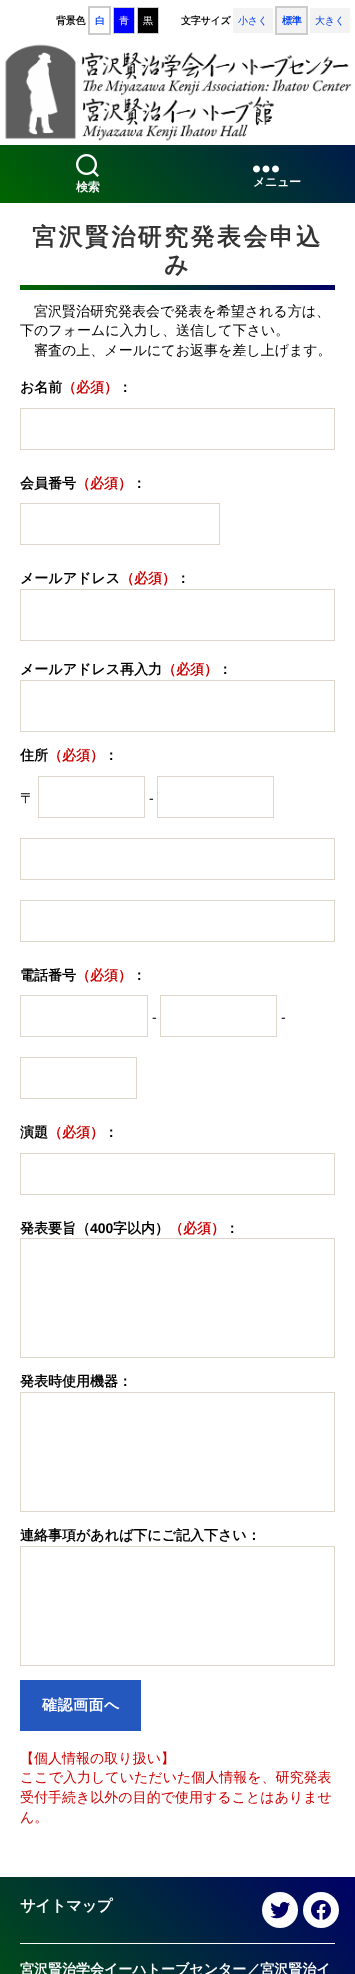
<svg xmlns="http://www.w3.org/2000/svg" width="355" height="1974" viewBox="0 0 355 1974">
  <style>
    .t1 { font: bold 10px WenQuanYi Zen Hei; letter-spacing: -0.25px; fill: #000; }
    .t2 { font: bold 10px WenQuanYi Zen Hei; letter-spacing: -0.25px; fill: #0040ee; }
    .t3 { font: 500 10px WenQuanYi Zen Hei; letter-spacing: -0.25px; fill: #fff; }
    .t4 { font: 500 10px WenQuanYi Zen Hei; letter-spacing: -0.25px; fill: #0040ee; }
    .t5 { font: bold 12px WenQuanYi Zen Hei; letter-spacing: -0.25px; fill: #fff; }
    .t6 { font: bold 24px WenQuanYi Zen Hei; letter-spacing: 2.4px; fill: #333; }
    .t7 { font: 500 14px WenQuanYi Zen Hei; fill: #000; }
    .t8 { font: bold 14px WenQuanYi Zen Hei; fill: #000; }
    .t9 { font: bold 14px WenQuanYi Zen Hei; fill: #c00; }
    .t10 { font: 14px Liberation Sans; fill: #000; }
    .t11 { font: bold 14px Liberation Sans; fill: #000; }
    .t12 { font: bold 15px WenQuanYi Zen Hei; letter-spacing: 0.5px; fill: #fff; }
    .t13 { font: 500 14px WenQuanYi Zen Hei; fill: #c00; }
    .t14 { font: bold 15.5px WenQuanYi Zen Hei; letter-spacing: -0.5px; fill: #fff; }
    .t15 { font: bold 14px WenQuanYi Zen Hei; fill: #fff; }
  </style>
  <defs>
    <linearGradient id="g1" gradientUnits="userSpaceOnUse" x1="317" y1="-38" x2="38" y2="241"><stop offset="0" stop-color="#006"/><stop offset="1" stop-color="#060"/></linearGradient>
    <linearGradient id="g2" gradientUnits="userSpaceOnUse" x1="258" y1="208" x2="97" y2="368"><stop offset="0" stop-color="#006"/><stop offset="1" stop-color="#060"/></linearGradient>
    <linearGradient id="g3" gradientUnits="userSpaceOnUse" x1="330" y1="1852" x2="25" y2="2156"><stop offset="0" stop-color="#006"/><stop offset="1" stop-color="#060"/></linearGradient>
  </defs>
  <rect width="100%" height="100%" fill="#fff"/>
  <rect x="0" y="145" width="355" height="58" fill="url(#g1)"/>
  <text x="56" y="24" class="t1">背景色</text>
  <rect x="89" y="7" width="21" height="27" fill="none" stroke="#ccc" stroke-width="2"/>
  <text x="95" y="24" class="t2">白</text>
  <rect x="113.5" y="7.5" width="21" height="26" fill="#00f" stroke="#ccc"/>
  <text x="119" y="24" class="t3">青</text>
  <rect x="137.5" y="7.5" width="21" height="26" fill="#000" stroke="#ccc"/>
  <text x="143" y="24" class="t3">黒</text>
  <text x="181" y="24" class="t1">文字サイズ</text>
  <rect x="233" y="8" width="40" height="25" fill="#f3f3f3"/>
  <text x="238" y="24" class="t4">小さく</text>
  <rect x="276" y="7" width="31" height="27" fill="#f3f3f3" stroke="#ccc" stroke-width="2"/>
  <text x="282" y="24" class="t2">標準</text>
  <rect x="310" y="8" width="40" height="25" fill="#f3f3f3"/>
  <text x="315" y="24" class="t4">大きく</text>
  <image x="5" y="44" width="347" height="97" href="images/1.png"/>
  <image x="76" y="154" width="23" height="23" href="images/2.png"/>
  <text x="76" y="191" class="t5">検索</text>
  <image x="253" y="165" width="26" height="8" href="images/3.png"/>
  <text x="253" y="186" class="t5">メニュー</text>
  <rect x="20" y="285" width="315" height="5" fill="url(#g2)"/>
  <text x="32" y="245" class="t6">宮沢賢治研究発表会申込</text>
  <text x="164" y="273" class="t6">み</text>
  <text x="34" y="316" class="t7">宮沢賢治研究発表会で発表を希望される方は、</text>
  <text x="20" y="335" class="t7">下のフォームに入力し、送信して下さい。</text>
  <text x="34" y="355" class="t7">審査の上、メールにてお返事を差し上げます。</text>
  <text x="20" y="392" class="t8">お名前</text>
  <text x="62" y="392" class="t9">（必須）</text>
  <text x="118" y="392" class="t8">：</text>
  <rect x="20.5" y="408.5" width="314" height="41" fill="none" stroke="#dcd7ca"/>
  <text x="20" y="488" class="t8">会員番号</text>
  <text x="76" y="488" class="t9">（必須）</text>
  <text x="132" y="488" class="t8">：</text>
  <rect x="20.5" y="503.5" width="199" height="41" fill="none" stroke="#dcd7ca"/>
  <text x="20" y="583" class="t8">メールアドレス</text>
  <text x="120" y="583" class="t9">（必須）</text>
  <text x="176" y="583" class="t8">：</text>
  <rect x="20.5" y="589.5" width="314" height="51" fill="none" stroke="#dcd7ca"/>
  <text x="20" y="674" class="t8">メールアドレス再入力</text>
  <text x="162" y="674" class="t9">（必須）</text>
  <text x="218" y="674" class="t8">：</text>
  <rect x="20.5" y="680.5" width="314" height="51" fill="none" stroke="#dcd7ca"/>
  <text x="20" y="760" class="t8">住所</text>
  <text x="48" y="760" class="t9">（必須）</text>
  <text x="104" y="760" class="t8">：</text>
  <text x="20" y="803" class="t7">〒</text>
  <rect x="38.5" y="776.5" width="106" height="41" fill="none" stroke="#dcd7ca"/>
  <text x="149" y="803" class="t10">-</text>
  <rect x="157.5" y="776.5" width="116" height="41" fill="none" stroke="#dcd7ca"/>
  <rect x="20.5" y="838.5" width="314" height="41" fill="none" stroke="#dcd7ca"/>
  <rect x="20.5" y="900.5" width="314" height="41" fill="none" stroke="#dcd7ca"/>
  <text x="20" y="980" class="t8">電話番号</text>
  <text x="76" y="980" class="t9">（必須）</text>
  <text x="132" y="980" class="t8">：</text>
  <rect x="20.5" y="995.5" width="127" height="41" fill="none" stroke="#dcd7ca"/>
  <text x="152" y="1022" class="t10">-</text>
  <rect x="160.5" y="995.5" width="116" height="41" fill="none" stroke="#dcd7ca"/>
  <text x="281" y="1022" class="t10">-</text>
  <rect x="20.5" y="1057.5" width="116" height="41" fill="none" stroke="#dcd7ca"/>
  <text x="20" y="1137" class="t8">演題</text>
  <text x="48" y="1137" class="t9">（必須）</text>
  <text x="104" y="1137" class="t8">：</text>
  <rect x="20.5" y="1153.5" width="314" height="41" fill="none" stroke="#dcd7ca"/>
  <text x="20" y="1233" class="t8">発表要旨（</text>
  <text x="90" y="1233" class="t11">400</text>
  <text x="113" y="1233" class="t8">字以内）</text>
  <text x="169" y="1233" class="t9">（必須）</text>
  <text x="225" y="1233" class="t8">：</text>
  <rect x="20.5" y="1238.5" width="314" height="119" fill="none" stroke="#dcd7ca"/>
  <text x="20" y="1386" class="t8">発表時使用機器：</text>
  <rect x="20.5" y="1392.5" width="314" height="119" fill="none" stroke="#dcd7ca"/>
  <text x="20" y="1540" class="t8">連絡事項があれば下にご記入下さい：</text>
  <rect x="20.5" y="1546.5" width="314" height="119" fill="none" stroke="#dcd7ca"/>
  <rect x="20" y="1680" width="121" height="51" fill="#2458bf"/>
  <text x="42" y="1710" class="t12">確認画面へ</text>
  <text x="20" y="1763" class="t13">【個人情報の取り扱い】</text>
  <text x="20" y="1782" class="t13">ここで入力していただいた個人情報を、研究発表</text>
  <text x="20" y="1802" class="t13">受付手続き以外の目的で使用することはありませ</text>
  <text x="20" y="1822" class="t13">ん。</text>
  <rect x="0" y="1877" width="355" height="97" fill="url(#g3)"/>
  <rect x="20" y="1943" width="315" height="1" fill="#fff"/>
  <text x="20" y="1911" class="t14">サイトマップ</text>
  <circle cx="280" cy="1910" r="18" fill="#fff"/>
  <image x="270" y="1902" width="20" height="17" href="images/4.png"/>
  <circle cx="321" cy="1910" r="18" fill="#fff"/>
  <image x="311" y="1900" width="20" height="20" href="images/5.png"/>
  <text x="20" y="1974" class="t15">宮沢賢治学会イーハトーブセンター／宮沢賢治イ</text>
</svg>
